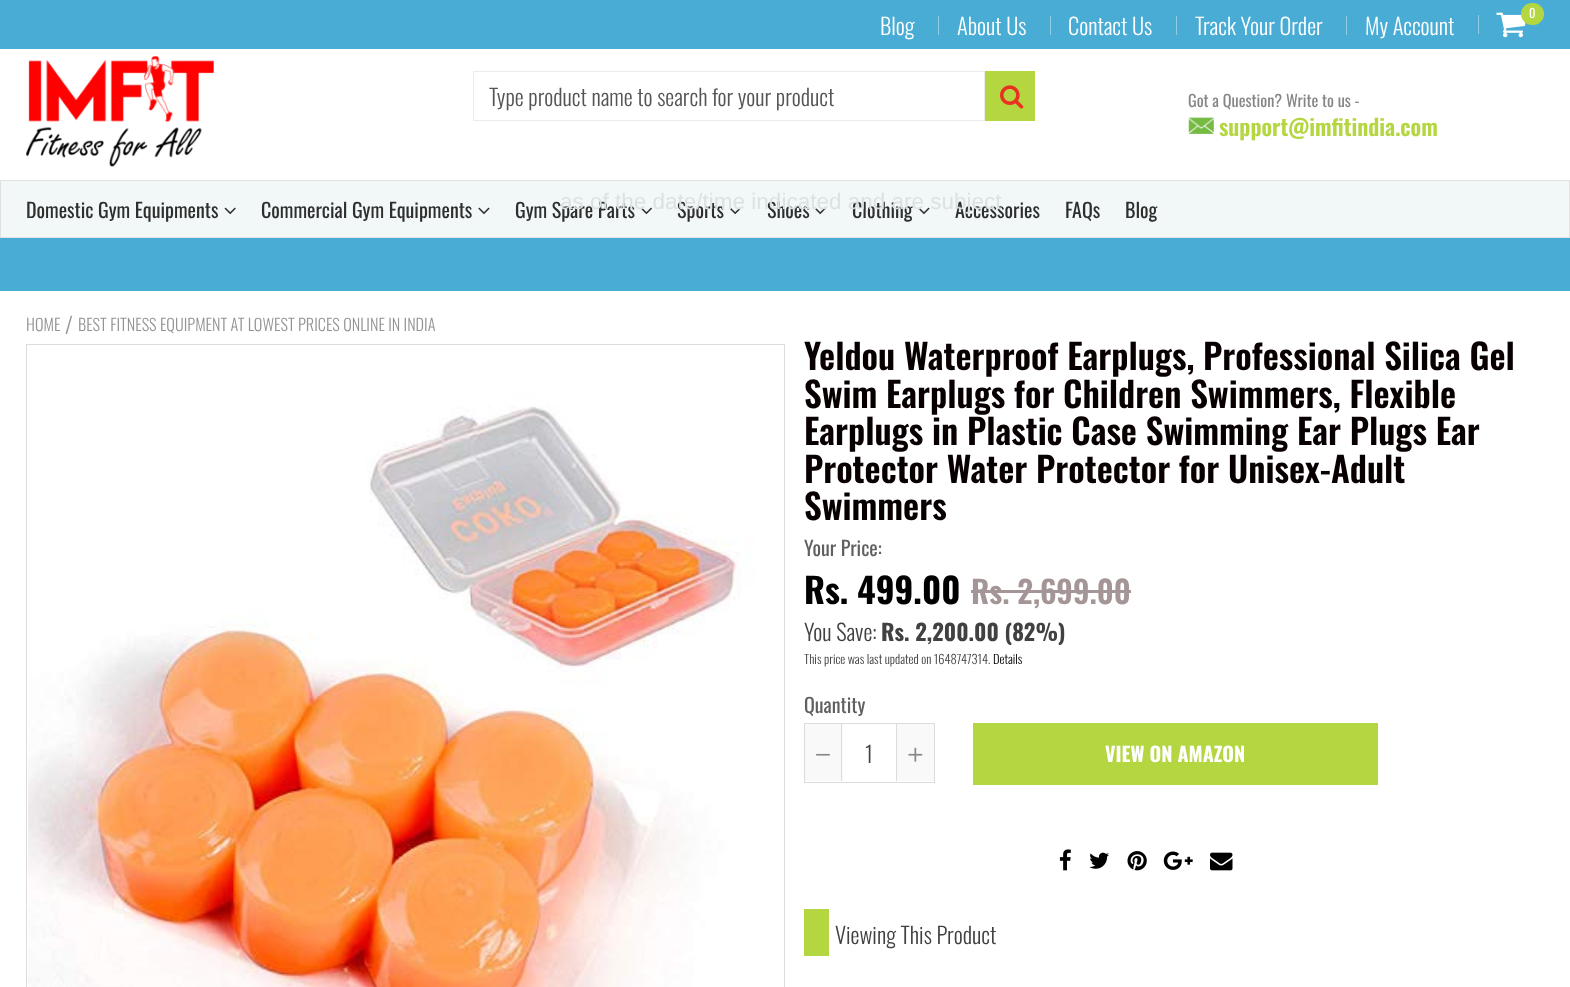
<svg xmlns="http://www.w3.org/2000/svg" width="1570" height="987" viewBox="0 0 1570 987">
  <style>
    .t1 { font: 12.5px Oswald; fill: #fff; }
    .t2 { font: 300 22.5px Oswald; fill: #fff; }
    .t3 { font: 300 22.5px Oswald; fill: #555; }
    .t4 { font: 16.25px Oswald; fill: #868686; }
    .t5 { font: 600 22.5px Oswald; fill: #b4d641; }
    .t6 { font: 20px Oswald; fill: #2e2e2e; }
    .t7 { font: 300 16.25px Oswald; fill: #949494; }
    .t8 { font: 300 22.5px Oswald; fill: #949494; }
    .t9 { font: 22.5px Liberation Sans; fill: #dce1e1; }
    .t10 { font: 20px Oswald; fill: #606060; }
    .t11 { font: bold 35px Oswald; fill: #000; }
    .t12 { font: 600 31.25px Oswald; fill: #a49696; }
    .t13 { font: 300 22.5px Oswald; fill: #414141; }
    .t14 { font: bold 22.5px Oswald; fill: #414141; }
    .t15 { font: 300 12.5px Oswald; fill: #414141; }
    .t16 { font: 300 12.5px Oswald; fill: #000; }
    .t17 { font: bold 20px Oswald; fill: #fff; }
    .t18 { font: 600 35px Oswald; fill: #080000; }
  </style>
  <rect width="100%" height="100%" fill="#fff"/>
  <rect x="0" y="0" width="1570" height="49" fill="#49acd5"/>
  <rect x="1478" y="15" width="1" height="19" fill="#92cde6"/>
  <image x="1496" y="12" width="30" height="26" href="images/1.png"/>
  <rect x="1521" y="3" width="23" height="22" rx="11" fill="#b4d641"/>
  <text x="1529" y="18" class="t1">0</text>
  <text x="880" y="35" class="t2">Blog</text>
  <rect x="938" y="16" width="1" height="19" fill="#92cde6"/>
  <text x="957" y="35" class="t2">About Us</text>
  <rect x="1050" y="16" width="1" height="19" fill="#92cde6"/>
  <text x="1068" y="35" class="t2">Contact Us</text>
  <rect x="1176" y="16" width="1" height="19" fill="#92cde6"/>
  <text x="1195" y="35" class="t2">Track Your Order</text>
  <rect x="1346" y="16" width="1" height="19" fill="#92cde6"/>
  <text x="1365" y="35" class="t2">My Account</text>
  <image x="26" y="56" width="188" height="111" href="images/2.png"/>
  <rect x="473.5" y="71.5" width="511" height="49" fill="none" stroke="#ebebeb"/>
  <text x="489" y="106" class="t3">Type product name to search for your product</text>
  <rect x="985" y="71" width="50" height="50" fill="#b4d641"/>
  <image x="1000" y="85" width="24" height="24" href="images/3.png"/>
  <text x="1188" y="107" class="t4">Got a Question? Write to us -</text>
  <image x="1188" y="117" width="26" height="17" href="images/4.png"/>
  <text x="1219" y="136" class="t5">support@imfitindia.com</text>
  <rect x="0.5" y="180.5" width="1569" height="57" fill="#f2f8f8" stroke="#e1e1e1"/>
  <text x="26" y="218" class="t6">Domestic Gym Equipments</text>
  <image x="224" y="207" width="12" height="8" href="images/5.png"/>
  <text x="261" y="218" class="t6">Commercial Gym Equipments</text>
  <image x="478" y="207" width="12" height="8" href="images/6.png"/>
  <text x="515" y="218" class="t6">Gym Spare Parts</text>
  <image x="640" y="207" width="12" height="8" href="images/7.png"/>
  <text x="677" y="218" class="t6">Sports</text>
  <image x="729" y="207" width="12" height="8" href="images/5.png"/>
  <text x="767" y="218" class="t6">Shoes</text>
  <image x="814" y="207" width="12" height="8" href="images/5.png"/>
  <text x="852" y="218" class="t6">Clothing</text>
  <image x="918" y="207" width="12" height="8" href="images/6.png"/>
  <text x="955" y="218" class="t6">Accessories</text>
  <text x="1065" y="218" class="t6">FAQs</text>
  <text x="1125" y="218" class="t6">Blog</text>
  <rect x="0" y="238" width="1570" height="53" fill="#49acd5"/>
  <text x="26" y="331" class="t7">HOME</text>
  <text x="65" y="334" class="t8">/</text>
  <text x="78" y="331" class="t7">BEST FITNESS EQUIPMENT AT LOWEST PRICES ONLINE IN INDIA</text>
  <text x="560" y="209" class="t9">as of the date/time indicated and are subject</text>
  <text x="804" y="556" class="t10">Your Price:</text>
  <text x="804" y="604" class="t11">Rs. 499.00</text>
  <text x="971" y="604" class="t12">Rs. 2,699.00</text>
  <rect x="971" y="590" width="160" height="3" fill="#a49696"/>
  <text x="804" y="641" class="t13">You Save:</text>
  <text x="881" y="641" class="t14">Rs. 2,200.00 (82%)</text>
  <text x="804" y="664" class="t15">This price was last updated on 1648747314.</text>
  <text x="993" y="664" class="t16">Details</text>
  <text x="804" y="713" class="t10">Quantity</text>
  <rect x="804.5" y="723.5" width="130" height="59" fill="none" stroke="#dddcdc"/>
  <rect x="805" y="724" width="38" height="57" fill="#f9f9f9"/>
  <rect x="841" y="724" width="1" height="57" fill="#dddcdc"/>
  <image x="815" y="753" width="15" height="3" href="images/8.png"/>
  <text x="865" y="763" class="t13">1</text>
  <rect x="897" y="724" width="37" height="57" fill="#f9f9f9"/>
  <rect x="896" y="724" width="1" height="57" fill="#dddcdc"/>
  <image x="908" y="747" width="15" height="15" href="images/9.png"/>
  <rect x="973" y="723" width="405" height="62" fill="#b4d641"/>
  <text x="1105" y="762" class="t17">VIEW ON AMAZON</text>
  <image x="1059" y="849" width="12" height="22" href="images/10.png"/>
  <image x="1089" y="852" width="20" height="17" href="images/11.png"/>
  <image x="1127" y="851" width="20" height="20" href="images/12.png"/>
  <image x="1163" y="851" width="30" height="19" href="images/13.png"/>
  <image x="1210" y="852" width="23" height="19" href="images/14.png"/>
  <rect x="804" y="909" width="25" height="47" fill="#b4d641"/>
  <text x="835" y="944" class="t13">Viewing This Product</text>
  <text x="804" y="370" class="t18">Yeldou Waterproof Earplugs, Professional Silica Gel</text>
  <text x="804" y="408" class="t18">Swim Earplugs for Children Swimmers, Flexible</text>
  <text x="804" y="445" class="t18">Earplugs in Plastic Case Swimming Ear Plugs Ear</text>
  <text x="804" y="483" class="t18">Protector Water Protector for Unisex-Adult</text>
  <text x="804" y="520" class="t18">Swimmers</text>
  <rect x="26.5" y="344.5" width="758" height="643" fill="none" stroke="#dddcdc"/>
  <image x="28" y="345" width="756" height="642" href="images/15.png"/>
</svg>
